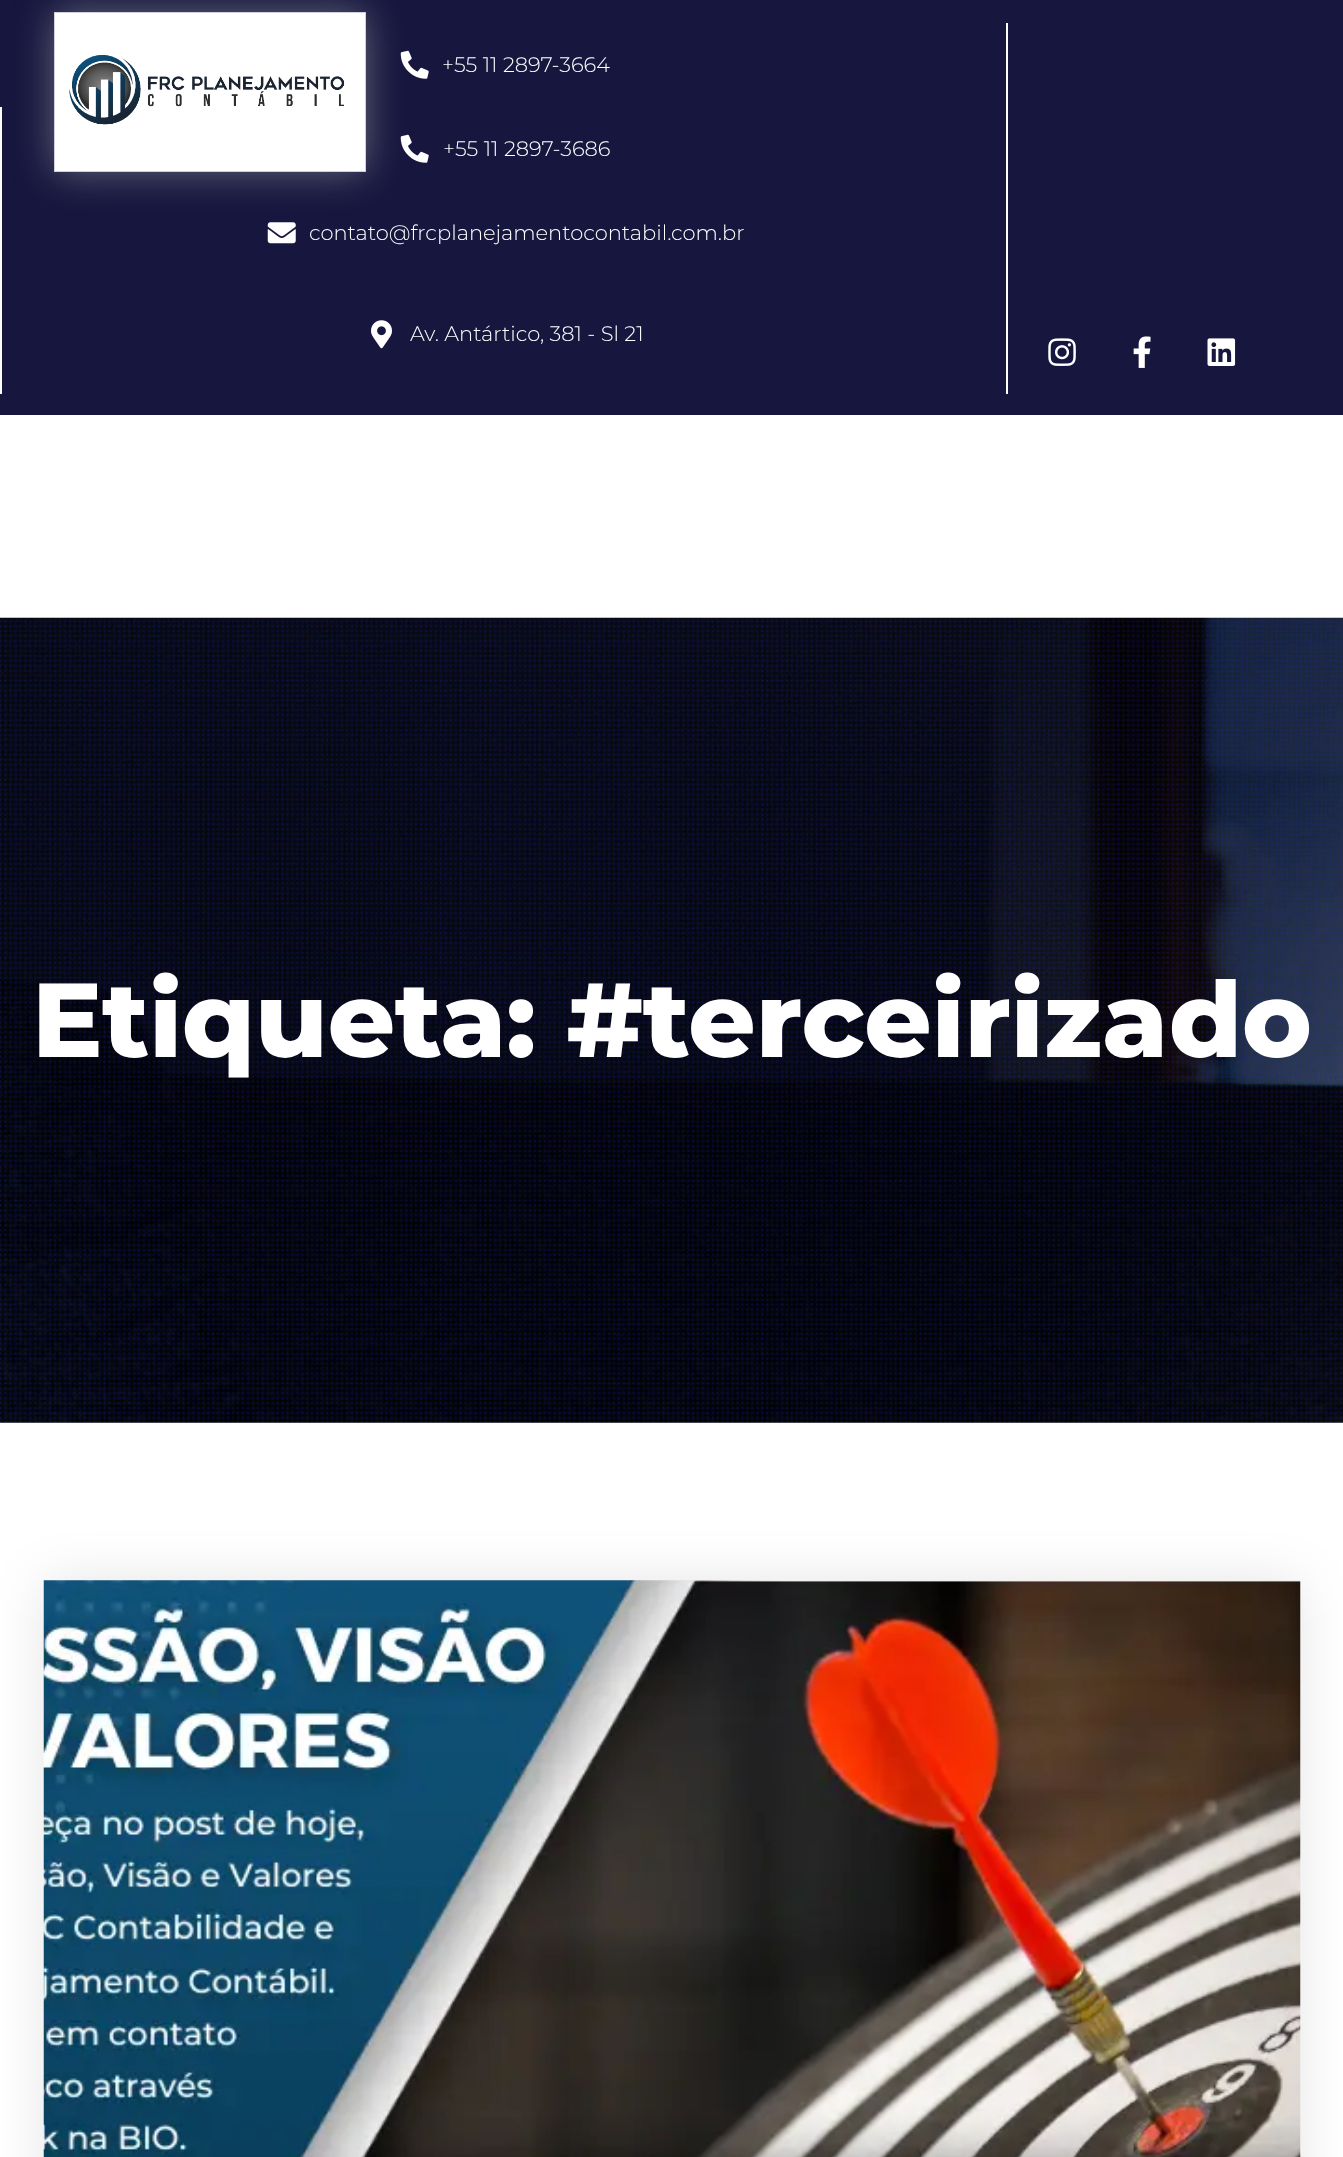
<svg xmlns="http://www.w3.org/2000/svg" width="1343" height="2157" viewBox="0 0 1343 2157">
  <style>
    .t1 { font: 300 21px Montserrat; fill: #fff; }
    .t2 { font: 800 105px Montserrat; fill: #fff; }
  </style>
  <rect width="100%" height="100%" fill="#fff"/>
  <rect x="0" y="0" width="1343" height="415" fill="#16163f"/>
  <image x="400" y="50" width="29" height="29" href="images/2.png"/>
  <rect x="0" y="107" width="2" height="287" fill="#fff"/>
  <image x="400" y="134" width="29" height="29" href="images/2.png"/>
  <image x="267" y="222" width="29" height="22" href="images/3.png"/>
  <rect x="54" y="12" width="312" height="160" fill="#b5b5b580" filter="blur(19.5px)"/>
  <rect x="54.5" y="12.5" width="311" height="159" fill="#fff" stroke="#d1cfdb"/>
  <image x="69" y="55" width="276" height="70" href="images/1.png"/>
  <rect x="1006" y="23" width="2" height="371" fill="#fff"/>
  <text x="442" y="72" class="t1">+55 11 2897-3664</text>
  <text x="443" y="156" class="t1">+55 11 2897-3686</text>
  <text x="309" y="240" class="t1">contato@frcplanejamentocontabil.com.br</text>
  <image x="371" y="320" width="21" height="29" href="images/4.png"/>
  <text x="410" y="341" class="t1">Av. Antártico, 381 - Sl 21</text>
  <image x="1048" y="338" width="28" height="28" href="images/5.png"/>
  <image x="1133" y="336" width="18" height="32" href="images/6.png"/>
  <image x="1207" y="338" width="29" height="28" href="images/7.png"/>
  <image x="0" y="617" width="1343" height="806" href="images/8.png"/>
  <text x="32" y="1057" class="t2">Etiqueta: #terceirizado</text>
  <rect x="44" y="1580" width="1256" height="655" fill="#0000001a" filter="blur(26px)"/>
  <image x="43" y="1580" width="1258" height="577" href="images/9.png"/>
</svg>
